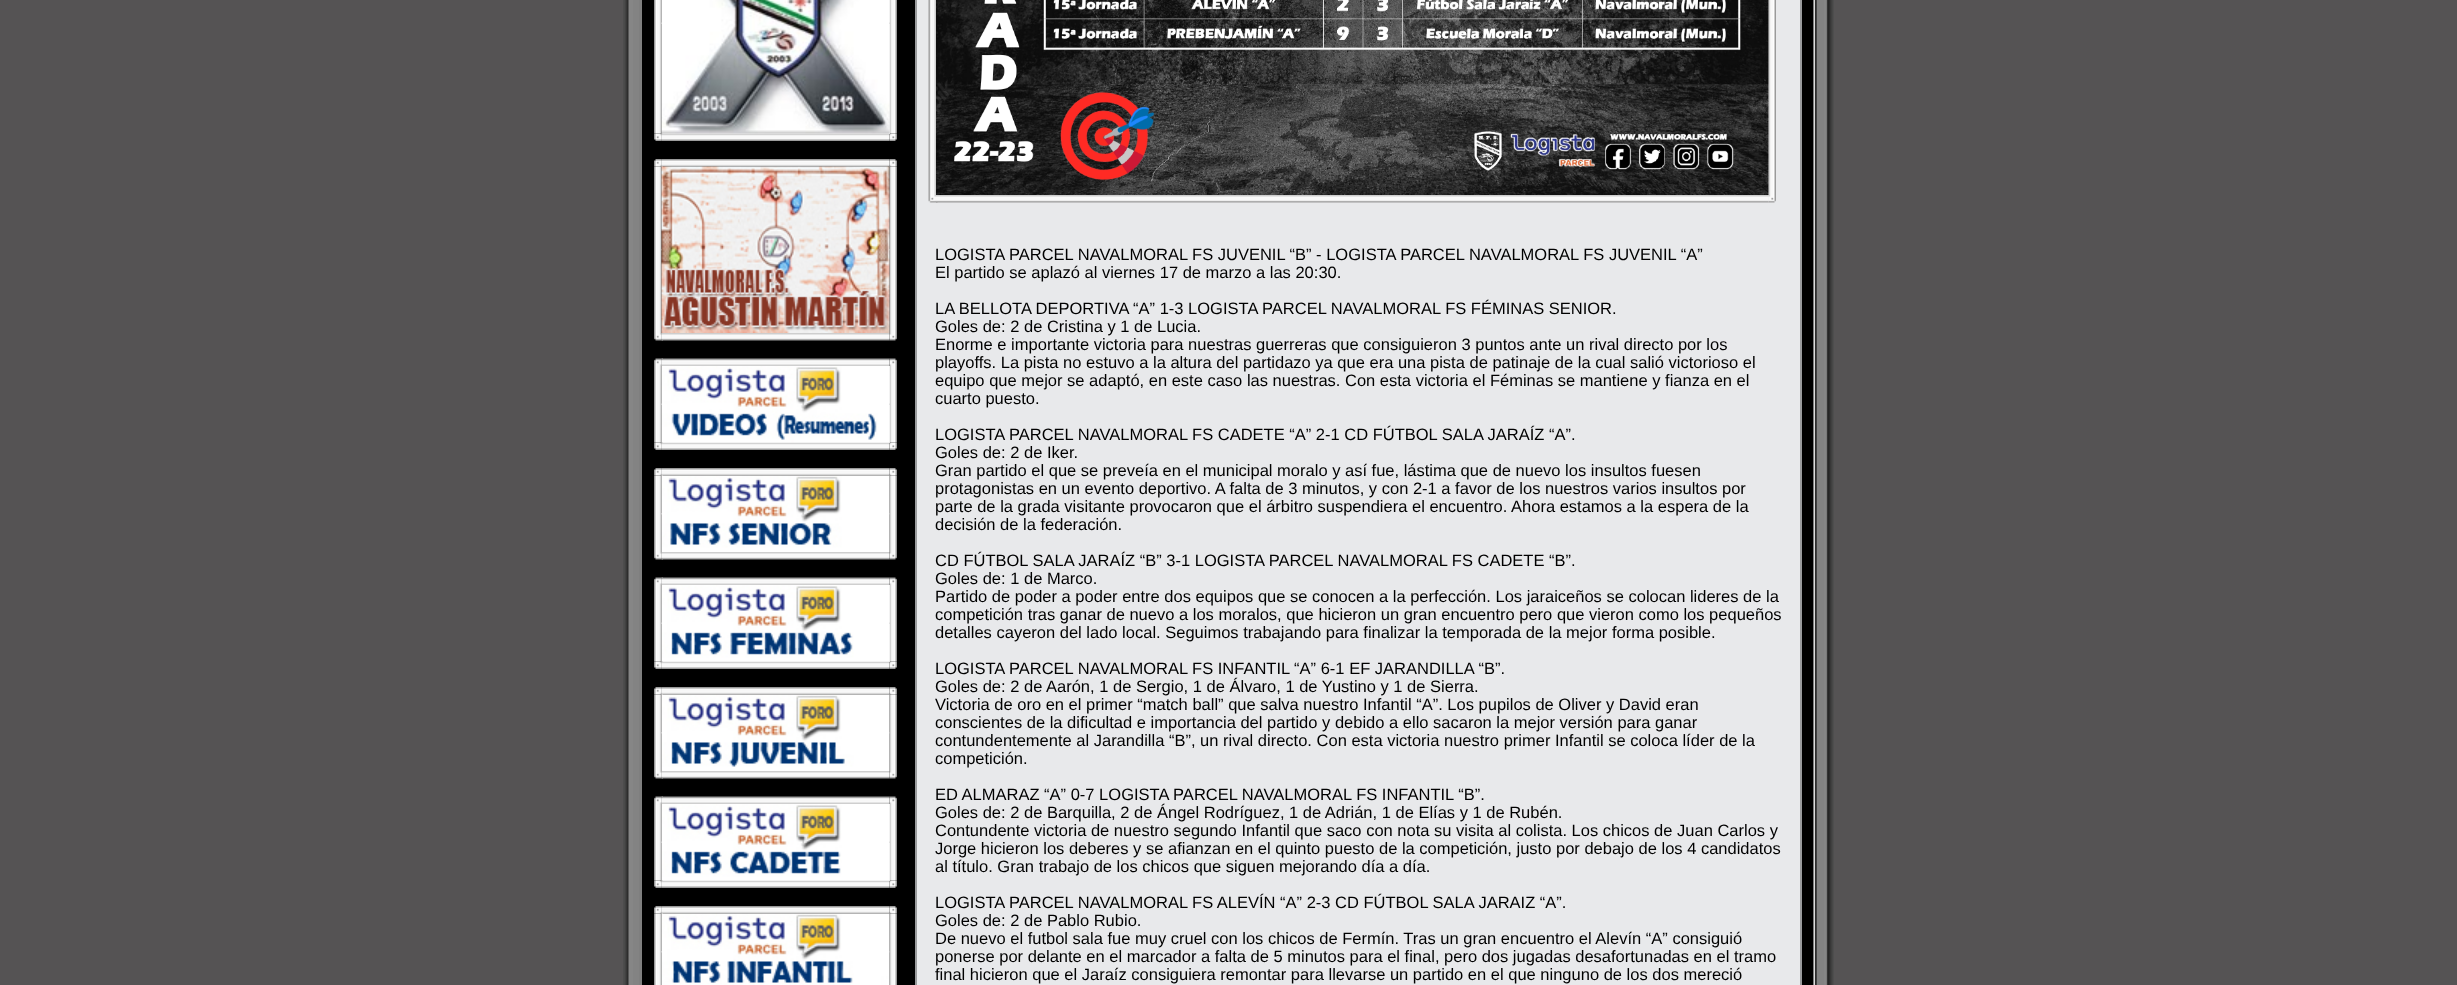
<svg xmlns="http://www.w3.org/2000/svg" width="2457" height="985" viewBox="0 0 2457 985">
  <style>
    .t1 { font: 16.5px Liberation Sans; fill: #000; }
  </style>
  <rect width="100%" height="100%" fill="#555354"/>
  <image x="623" y="0" width="10" height="985" href="images/1.png"/>
  <rect x="633" y="0" width="1191" height="985" fill="#838383"/>
  <rect x="639" y="0" width="3" height="985" fill="#7f7f7f"/>
  <rect x="642" y="0" width="1172" height="985" fill="#000"/>
  <image x="654" y="0" width="8" height="134" href="images/2.png"/>
  <image x="661" y="22" width="1" height="2" href="images/3.png"/>
  <rect x="662" y="0" width="228" height="134" fill="#fff"/>
  <image x="889" y="0" width="8" height="134" href="images/5.png"/>
  <image x="661" y="133" width="229" height="8" href="images/8.png"/>
  <image x="661" y="0" width="229" height="134" href="images/4.png"/>
  <image x="889" y="22" width="1" height="2" href="images/6.png"/>
  <image x="654" y="133" width="8" height="8" href="images/7.png"/>
  <image x="661" y="133" width="2" height="8" href="images/9.png"/>
  <image x="889" y="133" width="8" height="8" href="images/10.png"/>
  <image x="661" y="159" width="229" height="8" href="images/12.png"/>
  <image x="654" y="166" width="8" height="167" href="images/15.png"/>
  <image x="654" y="159" width="8" height="8" href="images/11.png"/>
  <image x="661" y="159" width="2" height="8" href="images/13.png"/>
  <image x="889" y="166" width="8" height="167" href="images/18.png"/>
  <image x="889" y="159" width="8" height="8" href="images/14.png"/>
  <image x="661" y="249" width="1" height="2" href="images/16.png"/>
  <image x="661" y="166" width="229" height="167" href="images/17.png"/>
  <image x="889" y="249" width="1" height="2" href="images/19.png"/>
  <image x="661" y="333" width="229" height="8" href="images/21.png"/>
  <image x="654" y="333" width="8" height="8" href="images/20.png"/>
  <image x="661" y="333" width="2" height="8" href="images/22.png"/>
  <image x="889" y="333" width="8" height="8" href="images/23.png"/>
  <image x="661" y="358" width="229" height="8" href="images/25.png"/>
  <image x="654" y="358" width="8" height="8" href="images/24.png"/>
  <image x="661" y="358" width="2" height="8" href="images/26.png"/>
  <image x="889" y="358" width="8" height="8" href="images/27.png"/>
  <image x="654" y="366" width="8" height="77" href="images/28.png"/>
  <image x="661" y="403" width="1" height="2" href="images/3.png"/>
  <rect x="662" y="366" width="228" height="77" fill="#fff"/>
  <image x="889" y="366" width="8" height="77" href="images/30.png"/>
  <image x="661" y="442" width="229" height="8" href="images/8.png"/>
  <image x="661" y="366" width="229" height="77" href="images/29.png"/>
  <image x="889" y="403" width="1" height="2" href="images/6.png"/>
  <image x="654" y="442" width="8" height="8" href="images/31.png"/>
  <image x="661" y="442" width="2" height="8" href="images/32.png"/>
  <image x="889" y="442" width="8" height="8" href="images/33.png"/>
  <image x="661" y="468" width="229" height="8" href="images/12.png"/>
  <image x="654" y="475" width="8" height="77" href="images/34.png"/>
  <image x="654" y="468" width="8" height="8" href="images/11.png"/>
  <image x="661" y="468" width="2" height="8" href="images/13.png"/>
  <image x="889" y="475" width="8" height="77" href="images/36.png"/>
  <image x="889" y="468" width="8" height="8" href="images/14.png"/>
  <image x="661" y="513" width="1" height="2" href="images/16.png"/>
  <image x="661" y="475" width="229" height="77" href="images/35.png"/>
  <image x="889" y="513" width="1" height="2" href="images/37.png"/>
  <image x="661" y="552" width="229" height="8" href="images/21.png"/>
  <image x="654" y="552" width="8" height="8" href="images/20.png"/>
  <image x="661" y="552" width="2" height="8" href="images/22.png"/>
  <image x="889" y="552" width="8" height="8" href="images/23.png"/>
  <image x="661" y="577" width="229" height="8" href="images/25.png"/>
  <image x="654" y="577" width="8" height="8" href="images/24.png"/>
  <image x="661" y="577" width="2" height="8" href="images/26.png"/>
  <image x="889" y="577" width="8" height="8" href="images/27.png"/>
  <image x="654" y="585" width="8" height="77" href="images/28.png"/>
  <image x="661" y="622" width="1" height="2" href="images/3.png"/>
  <rect x="662" y="585" width="228" height="77" fill="#fff"/>
  <image x="889" y="585" width="8" height="77" href="images/30.png"/>
  <image x="661" y="661" width="229" height="8" href="images/8.png"/>
  <image x="661" y="585" width="229" height="77" href="images/38.png"/>
  <image x="889" y="622" width="1" height="2" href="images/6.png"/>
  <image x="654" y="661" width="8" height="8" href="images/31.png"/>
  <image x="661" y="661" width="2" height="8" href="images/32.png"/>
  <image x="889" y="661" width="8" height="8" href="images/33.png"/>
  <image x="661" y="687" width="229" height="8" href="images/12.png"/>
  <image x="654" y="694" width="8" height="77" href="images/34.png"/>
  <image x="654" y="687" width="8" height="8" href="images/11.png"/>
  <image x="661" y="687" width="2" height="8" href="images/13.png"/>
  <image x="889" y="694" width="8" height="77" href="images/36.png"/>
  <image x="889" y="687" width="8" height="8" href="images/14.png"/>
  <image x="661" y="732" width="1" height="2" href="images/16.png"/>
  <image x="661" y="694" width="229" height="77" href="images/39.png"/>
  <image x="889" y="732" width="1" height="2" href="images/37.png"/>
  <image x="661" y="771" width="229" height="8" href="images/21.png"/>
  <image x="654" y="771" width="8" height="8" href="images/20.png"/>
  <image x="661" y="771" width="2" height="8" href="images/22.png"/>
  <image x="889" y="771" width="8" height="8" href="images/23.png"/>
  <image x="661" y="796" width="229" height="8" href="images/25.png"/>
  <image x="654" y="796" width="8" height="8" href="images/24.png"/>
  <image x="661" y="796" width="2" height="8" href="images/26.png"/>
  <image x="889" y="796" width="8" height="8" href="images/27.png"/>
  <image x="654" y="804" width="8" height="77" href="images/28.png"/>
  <image x="661" y="841" width="1" height="2" href="images/3.png"/>
  <rect x="662" y="804" width="228" height="77" fill="#fff"/>
  <image x="889" y="804" width="8" height="77" href="images/30.png"/>
  <image x="661" y="880" width="229" height="8" href="images/8.png"/>
  <image x="661" y="804" width="229" height="77" href="images/40.png"/>
  <image x="889" y="841" width="1" height="2" href="images/6.png"/>
  <image x="654" y="880" width="8" height="8" href="images/31.png"/>
  <image x="661" y="880" width="2" height="8" href="images/32.png"/>
  <image x="889" y="880" width="8" height="8" href="images/33.png"/>
  <image x="661" y="906" width="229" height="8" href="images/12.png"/>
  <image x="654" y="913" width="8" height="72" href="images/41.png"/>
  <image x="654" y="906" width="8" height="8" href="images/11.png"/>
  <image x="661" y="906" width="2" height="8" href="images/13.png"/>
  <image x="889" y="913" width="8" height="72" href="images/43.png"/>
  <image x="889" y="906" width="8" height="8" href="images/14.png"/>
  <image x="661" y="951" width="1" height="2" href="images/16.png"/>
  <image x="661" y="913" width="229" height="72" href="images/42.png"/>
  <image x="889" y="951" width="1" height="2" href="images/37.png"/>
  <rect x="915" y="0" width="2" height="985" fill="#9a9b9d"/>
  <rect x="917" y="0" width="883" height="985" fill="#e8e9eb"/>
  <image x="928" y="0" width="8" height="195" href="images/44.png"/>
  <image x="1768" y="0" width="8" height="195" href="images/46.png"/>
  <image x="936" y="0" width="833" height="195" href="images/45.png"/>
  <image x="928" y="195" width="8" height="8" href="images/47.png"/>
  <image x="936" y="195" width="833" height="8" href="images/48.png"/>
  <image x="936" y="202" width="2" height="1" href="images/49.png"/>
  <image x="1768" y="195" width="8" height="8" href="images/50.png"/>
  <text x="935" y="260" class="t1">LOGISTA PARCEL NAVALMORAL FS JUVENIL “B” - LOGISTA PARCEL NAVALMORAL FS JUVENIL “A”</text>
  <text x="935" y="278" class="t1">El partido se aplazó al viernes 17 de marzo a las 20:30.</text>
  <text x="935" y="314" class="t1">LA BELLOTA DEPORTIVA “A” 1-3 LOGISTA PARCEL NAVALMORAL FS FÉMINAS SENIOR.</text>
  <text x="935" y="332" class="t1">Goles de: 2 de Cristina y 1 de Lucia.</text>
  <text x="935" y="350" class="t1">Enorme e importante victoria para nuestras guerreras que consiguieron 3 puntos ante un rival directo por los</text>
  <text x="935" y="368" class="t1">playoffs. La pista no estuvo a la altura del partidazo ya que era una pista de patinaje de la cual salió victorioso el</text>
  <text x="935" y="386" class="t1">equipo que mejor se adaptó, en este caso las nuestras. Con esta victoria el Féminas se mantiene y fianza en el</text>
  <text x="935" y="404" class="t1">cuarto puesto.</text>
  <text x="935" y="440" class="t1">LOGISTA PARCEL NAVALMORAL FS CADETE “A” 2-1 CD FÚTBOL SALA JARAÍZ “A”.</text>
  <text x="935" y="458" class="t1">Goles de: 2 de Iker.</text>
  <text x="935" y="476" class="t1">Gran partido el que se preveía en el municipal moralo y así fue, lástima que de nuevo los insultos fuesen</text>
  <text x="935" y="494" class="t1">protagonistas en un evento deportivo. A falta de 3 minutos, y con 2-1 a favor de los nuestros varios insultos por</text>
  <text x="935" y="512" class="t1">parte de la grada visitante provocaron que el árbitro suspendiera el encuentro. Ahora estamos a la espera de la</text>
  <text x="935" y="530" class="t1">decisión de la federación.</text>
  <text x="935" y="566" class="t1">CD FÚTBOL SALA JARAÍZ “B” 3-1 LOGISTA PARCEL NAVALMORAL FS CADETE “B”.</text>
  <text x="935" y="584" class="t1">Goles de: 1 de Marco.</text>
  <text x="935" y="602" class="t1">Partido de poder a poder entre dos equipos que se conocen a la perfección. Los jaraiceños se colocan lideres de la</text>
  <text x="935" y="620" class="t1">competición tras ganar de nuevo a los moralos, que hicieron un gran encuentro pero que vieron como los pequeños</text>
  <text x="935" y="638" class="t1">detalles cayeron del lado local. Seguimos trabajando para finalizar la temporada de la mejor forma posible.</text>
  <text x="935" y="674" class="t1">LOGISTA PARCEL NAVALMORAL FS INFANTIL “A” 6-1 EF JARANDILLA “B”.</text>
  <text x="935" y="692" class="t1">Goles de: 2 de Aarón, 1 de Sergio, 1 de Álvaro, 1 de Yustino y 1 de Sierra.</text>
  <text x="935" y="710" class="t1">Victoria de oro en el primer “match ball” que salva nuestro Infantil “A”. Los pupilos de Oliver y David eran</text>
  <text x="935" y="728" class="t1">conscientes de la dificultad e importancia del partido y debido a ello sacaron la mejor versión para ganar</text>
  <text x="935" y="746" class="t1">contundentemente al Jarandilla “B”, un rival directo. Con esta victoria nuestro primer Infantil se coloca líder de la</text>
  <text x="935" y="764" class="t1">competición.</text>
  <text x="935" y="800" class="t1">ED ALMARAZ “A” 0-7 LOGISTA PARCEL NAVALMORAL FS INFANTIL “B”.</text>
  <text x="935" y="818" class="t1">Goles de: 2 de Barquilla, 2 de Ángel Rodríguez, 1 de Adrián, 1 de Elías y 1 de Rubén.</text>
  <text x="935" y="836" class="t1">Contundente victoria de nuestro segundo Infantil que saco con nota su visita al colista. Los chicos de Juan Carlos y</text>
  <text x="935" y="854" class="t1">Jorge hicieron los deberes y se afianzan en el quinto puesto de la competición, justo por debajo de los 4 candidatos</text>
  <text x="935" y="872" class="t1">al título. Gran trabajo de los chicos que siguen mejorando día a día.</text>
  <text x="935" y="908" class="t1">LOGISTA PARCEL NAVALMORAL FS ALEVÍN “A” 2-3 CD FÚTBOL SALA JARAIZ “A”.</text>
  <text x="935" y="926" class="t1">Goles de: 2 de Pablo Rubio.</text>
  <text x="935" y="944" class="t1">De nuevo el futbol sala fue muy cruel con los chicos de Fermín. Tras un gran encuentro el Alevín “A” consiguió</text>
  <text x="935" y="962" class="t1">ponerse por delante en el marcador a falta de 5 minutos para el final, pero dos jugadas desafortunadas en el tramo</text>
  <text x="935" y="980" class="t1">final hicieron que el Jaraíz consiguiera remontar para llevarse un partido en el que ninguno de los dos mereció</text>
  <rect x="1800" y="0" width="2" height="985" fill="#9a9b9d"/>
  <image x="1813" y="0" width="4" height="985" href="images/51.png"/>
  <image x="1824" y="0" width="10" height="985" href="images/52.png"/>
</svg>
